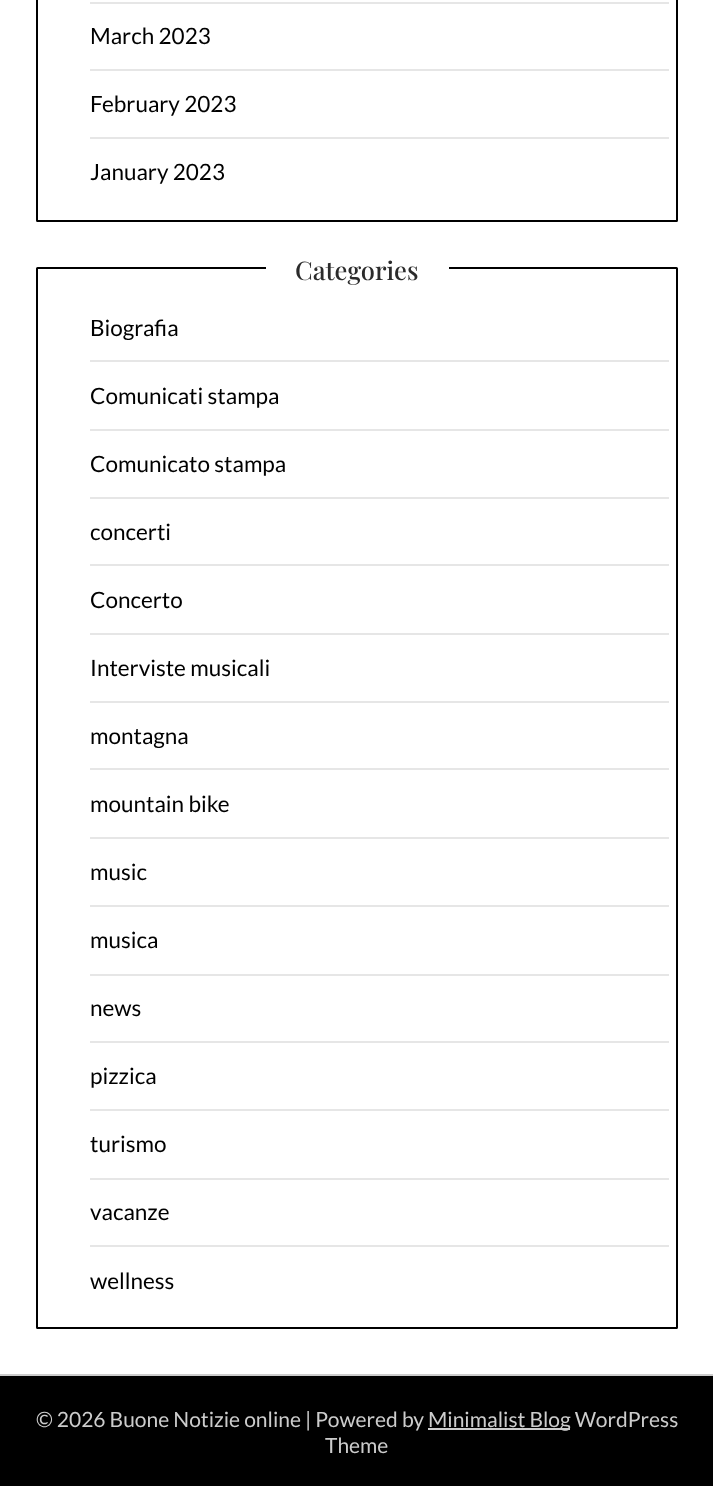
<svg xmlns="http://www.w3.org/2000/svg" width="713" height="1486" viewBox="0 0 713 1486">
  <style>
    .t1 { font: 22.5px Lato; fill: #000; }
    .t2 { font: 500 25.5px Playfair Display; fill: #2b2b2b; }
    .t3 { font: 21px Lato; fill: #ccc; }
  </style>
  <rect width="100%" height="100%" fill="#fff"/>
  <rect x="37" y="-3" width="640" height="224" rx="0.5" fill="none" stroke="#000" stroke-width="2"/>
  <rect x="90" y="2" width="579" height="2" fill="#e6e6e6"/>
  <rect x="90" y="69" width="579" height="2" fill="#e6e6e6"/>
  <text x="90" y="44" class="t1">March 2023</text>
  <rect x="90" y="137" width="579" height="2" fill="#e6e6e6"/>
  <text x="90" y="112" class="t1">February 2023</text>
  <text x="90" y="180" class="t1">January 2023</text>
  <rect x="37" y="268" width="640" height="1060" rx="0.5" fill="none" stroke="#000" stroke-width="2"/>
  <rect x="266" y="267" width="183" height="2" fill="#fff"/>
  <text x="295" y="280" class="t2">Categories</text>
  <rect x="90" y="360" width="579" height="2" fill="#e6e6e6"/>
  <text x="90" y="336" class="t1">Biografia</text>
  <rect x="90" y="429" width="579" height="2" fill="#e6e6e6"/>
  <text x="90" y="404" class="t1">Comunicati stampa</text>
  <rect x="90" y="497" width="579" height="2" fill="#e6e6e6"/>
  <text x="90" y="472" class="t1">Comunicato stampa</text>
  <rect x="90" y="564" width="579" height="2" fill="#e6e6e6"/>
  <text x="90" y="540" class="t1">concerti</text>
  <rect x="90" y="633" width="579" height="2" fill="#e6e6e6"/>
  <text x="90" y="608" class="t1">Concerto</text>
  <rect x="90" y="701" width="579" height="2" fill="#e6e6e6"/>
  <text x="90" y="676" class="t1">Interviste musicali</text>
  <rect x="90" y="768" width="579" height="2" fill="#e6e6e6"/>
  <text x="90" y="744" class="t1">montagna</text>
  <rect x="90" y="837" width="579" height="2" fill="#e6e6e6"/>
  <text x="90" y="812" class="t1">mountain bike</text>
  <rect x="90" y="905" width="579" height="2" fill="#e6e6e6"/>
  <text x="90" y="880" class="t1">music</text>
  <rect x="90" y="974" width="579" height="2" fill="#e6e6e6"/>
  <text x="90" y="948" class="t1">musica</text>
  <rect x="90" y="1041" width="579" height="2" fill="#e6e6e6"/>
  <text x="90" y="1016" class="t1">news</text>
  <rect x="90" y="1109" width="579" height="2" fill="#e6e6e6"/>
  <text x="90" y="1084" class="t1">pizzica</text>
  <rect x="90" y="1178" width="579" height="2" fill="#e6e6e6"/>
  <text x="90" y="1152" class="t1">turismo</text>
  <rect x="90" y="1245" width="579" height="2" fill="#e6e6e6"/>
  <text x="90" y="1220" class="t1">vacanze</text>
  <text x="90" y="1289" class="t1">wellness</text>
  <rect x="0" y="1376" width="713" height="110" fill="#000"/>
  <rect x="0" y="1374" width="713" height="2" fill="#ccc"/>
  <text x="36" y="1427" class="t3">© 2026 Buone Notizie online | Powered by</text>
  <rect x="428" y="1428" width="142" height="2" fill="#ccc"/>
  <text x="428" y="1427" class="t3">Minimalist Blog WordPress</text>
  <text x="325" y="1453" class="t3">Theme</text>
</svg>
